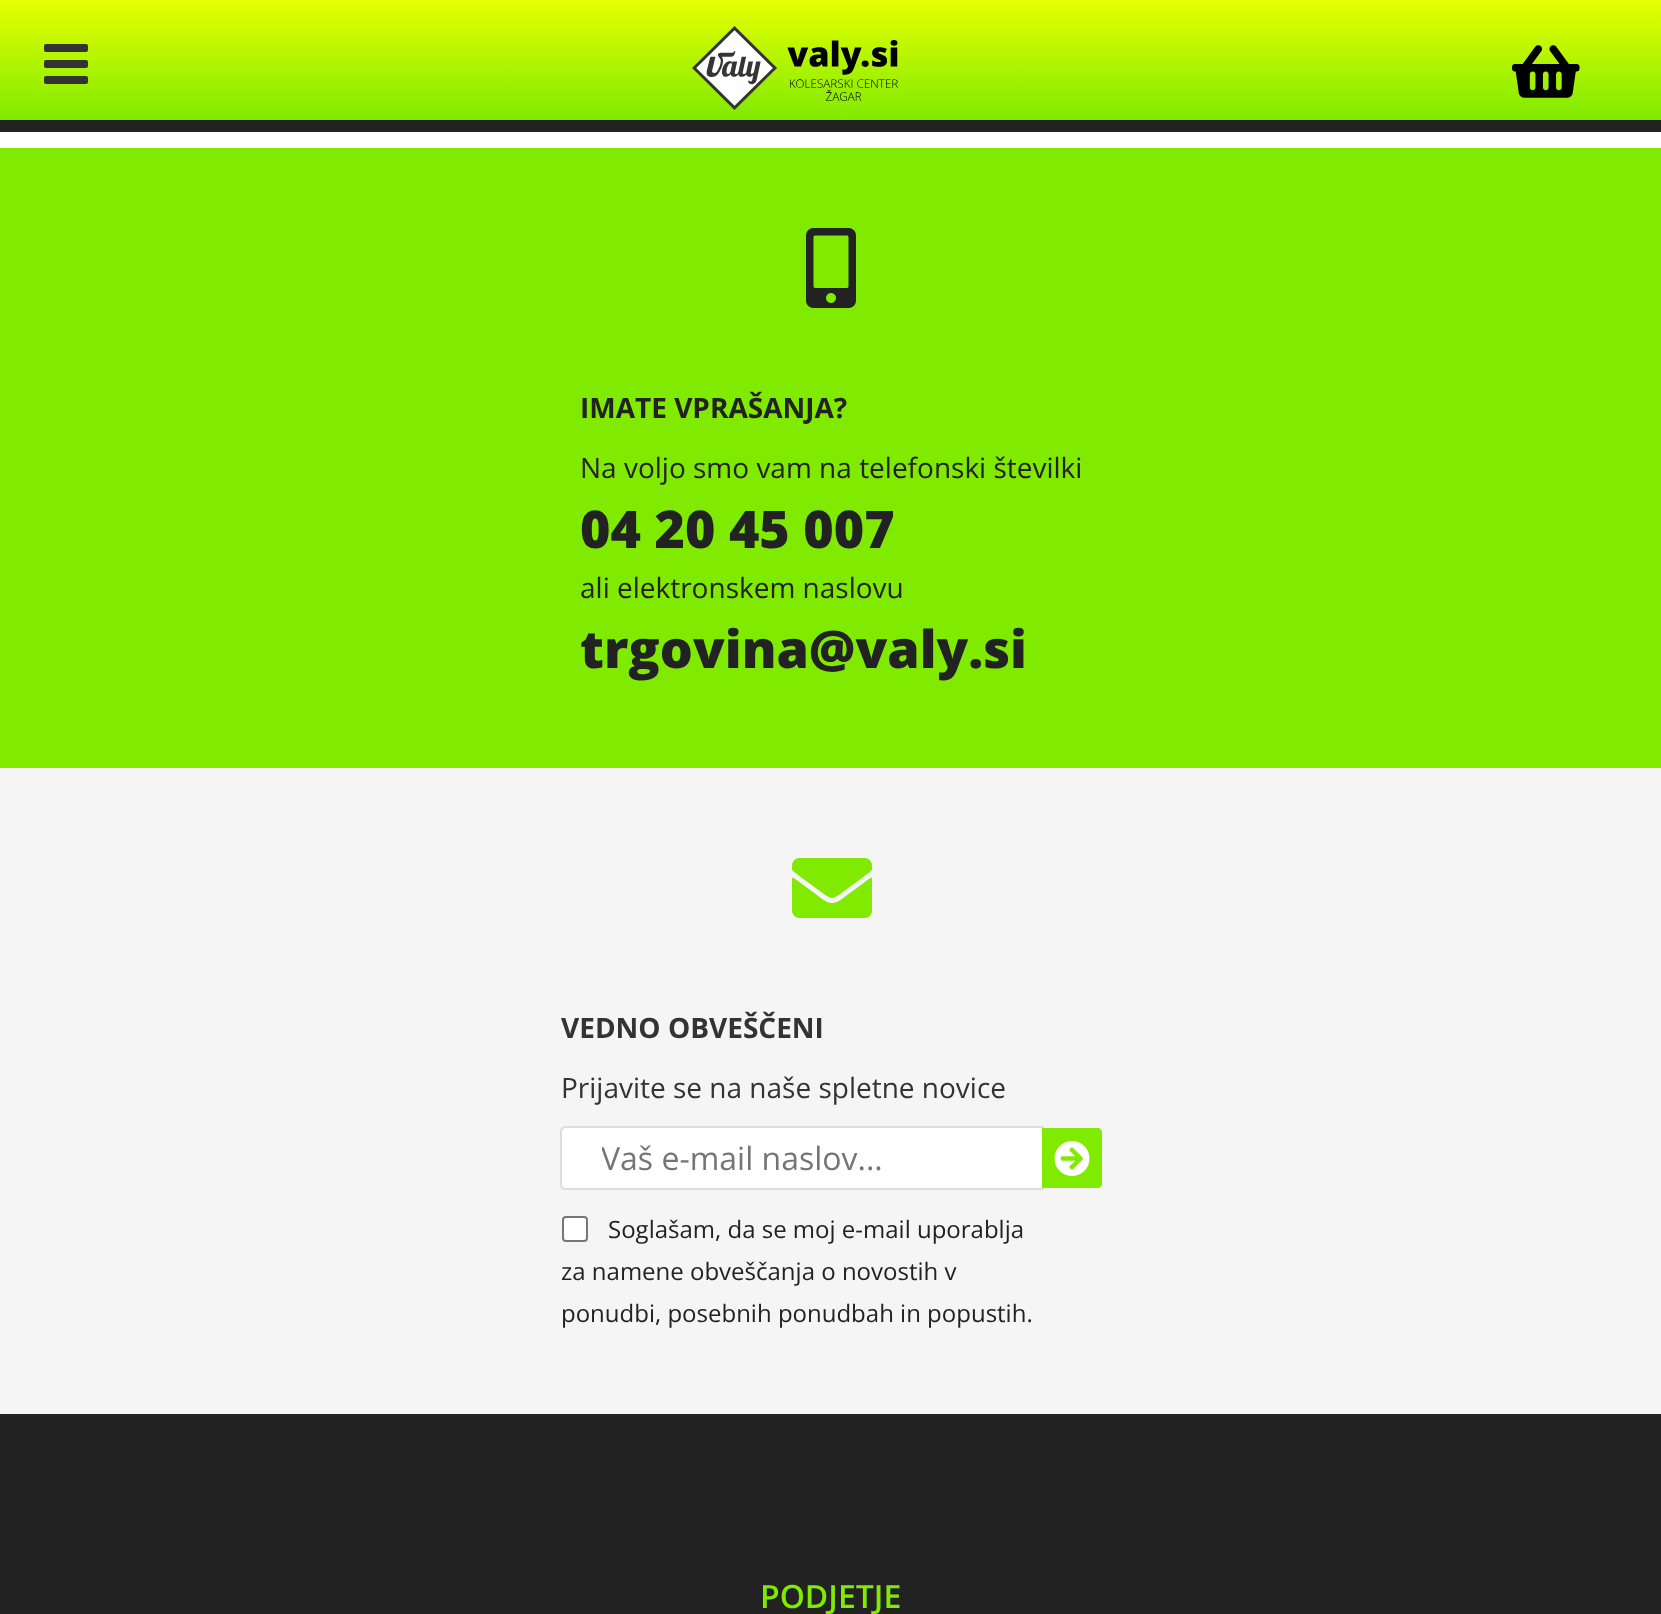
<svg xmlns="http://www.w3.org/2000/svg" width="1661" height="1614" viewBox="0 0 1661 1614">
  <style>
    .t1 { font: bold 28px Open Sans; fill: #222; }
    .t2 { font: 28px Open Sans; fill: #222; }
    .t3 { font: 800 52px Open Sans; fill: #222; }
    .t4 { font: bold 28px Open Sans; fill: #333; }
    .t5 { font: 28px Open Sans; fill: #333; }
    .t6 { font: 32px Open Sans; fill: #757575; }
    .t7 { font: 24px Open Sans; fill: #222; }
    .t8 { font: 600 32px Open Sans; fill: #80ea00; }
  </style>
  <defs>
    <linearGradient id="g1" gradientUnits="userSpaceOnUse" x1="831" y1="0" x2="831" y2="120"><stop offset="0" stop-color="#e6ff01"/><stop offset="1" stop-color="#80ea00"/></linearGradient>
    <clipPath id="clip1"><rect x="602" y="1136" width="400" height="44"/></clipPath>
  </defs>
  <rect width="100%" height="100%" fill="#fff"/>
  <rect x="0" y="0" width="1661" height="120" fill="url(#g1)"/>
  <rect x="0" y="120" width="1661" height="12" fill="#222"/>
  <rect x="44" y="44" width="44" height="8" rx="2" fill="#333"/>
  <rect x="44" y="60" width="44" height="8" rx="2" fill="#333"/>
  <rect x="44" y="76" width="44" height="8" rx="2" fill="#333"/>
  <image x="692" y="26" width="206" height="84" href="images/1.png"/>
  <image x="1512" y="45" width="68" height="53" href="images/2.png"/>
  <rect x="0" y="1414" width="1661" height="200" fill="#222"/>
  <rect x="0" y="148" width="1661" height="620" fill="#80ea00"/>
  <image x="806" y="228" width="50" height="80" href="images/3.png"/>
  <text x="580" y="418" class="t1">IMATE VPRAŠANJA?</text>
  <text x="580" y="478" class="t2">Na voljo smo vam na telefonski številki</text>
  <text x="580" y="548" class="t3">04 20 45 007</text>
  <text x="580" y="598" class="t2">ali elektronskem naslovu</text>
  <text x="580" y="668" class="t3">trgovina@valy.si</text>
  <rect x="0" y="768" width="1661" height="646" fill="#f5f5f5"/>
  <image x="792" y="858" width="80" height="60" href="images/4.png"/>
  <text x="561" y="1038" class="t4">VEDNO OBVEŠČENI</text>
  <text x="561" y="1098" class="t5">Prijavite se na naše spletne novice</text>
  <path d="M566 1127H1043V1189H566C563 1189 561 1187 561 1184V1132C561 1129 563 1127 566 1127Z" fill="none" stroke="#ddd" stroke-width="2"/>
  <path d="M566 1128H1042V1188H566C564 1188 562 1186 562 1184V1132C562 1130 564 1128 566 1128Z" fill="#fff"/>
  <g clip-path="url(#clip1)">
    <text x="601" y="1170" class="t6">Vaš e-mail naslov...</text>
  </g>
  <path d="M1042 1128H1098C1100 1128 1102 1130 1102 1132V1184C1102 1186 1100 1188 1098 1188H1042Z" fill="#80ea00"/>
  <image x="1054" y="1141" width="36" height="35" href="images/5.png"/>
  <rect x="563" y="1217" width="24" height="24" rx="3" fill="#fff" stroke="#767676" stroke-width="2"/>
  <text x="608" y="1238" class="t7">Soglašam, da se moj e-mail uporablja</text>
  <text x="561" y="1280" class="t7">za namene obveščanja o novostih v</text>
  <text x="561" y="1322" class="t7">ponudbi, posebnih ponudbah in popustih.</text>
  <text x="760" y="1608" class="t8">PODJETJE</text>
</svg>
